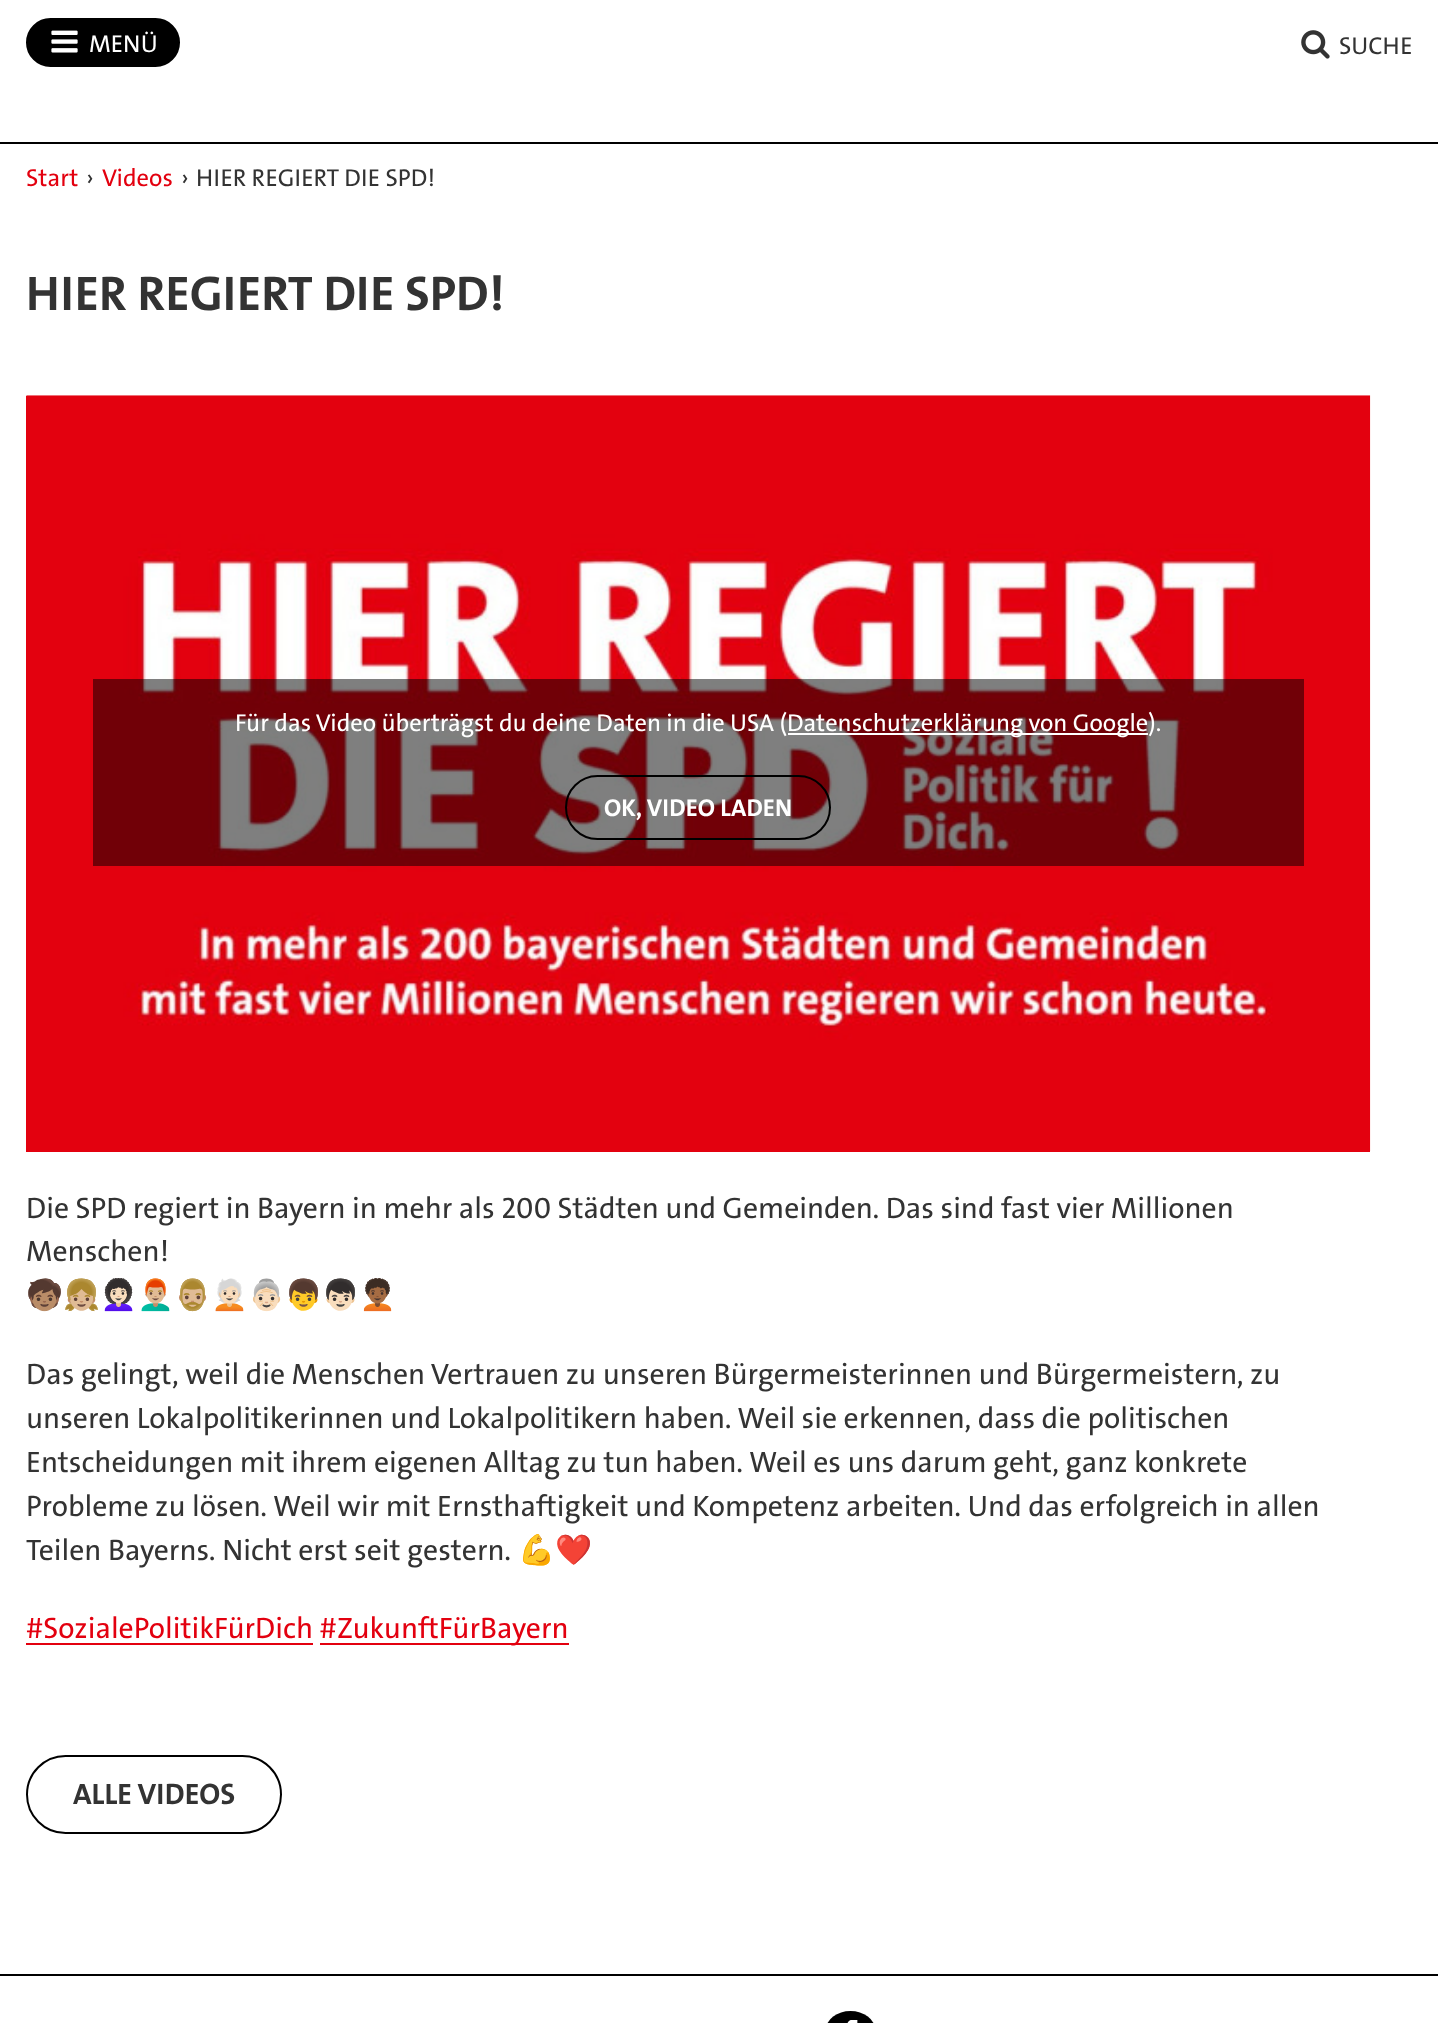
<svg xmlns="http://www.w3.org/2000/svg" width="1438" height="2023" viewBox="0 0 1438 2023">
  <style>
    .t1 { font: 500 24.5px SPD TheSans; fill: #fff; }
    .t2 { font: 500 24.5px SPD TheSans; fill: #333; }
    .t3 { font: 500 24.5px SPD TheSans; fill: #e3000f; }
    .t4 { font: bold 49px SPD TheSans; fill: #333; }
    .t5 { font: bold 24.5px SPD TheSans; fill: #fff; }
    .t6 { font: 500 29.75px SPD TheSans; fill: #333; }
    .t7 { font: 29.75px Noto Color Emoji; fill: #333; }
    .t8 { font: 500 29.75px SPD TheSans; fill: #e3000f; }
    .t9 { font: bold 29.75px SPD TheSans; fill: #333; }
  </style>
  <rect width="100%" height="100%" fill="#fff"/>
  <rect x="28" y="20" width="150" height="45" rx="22.5" fill="#000" stroke="#000" stroke-width="4"/>
  <image x="51" y="30" width="27" height="23" href="images/1.png"/>
  <text x="89" y="52" class="t1">MENÜ</text>
  <image x="1301" y="30" width="29" height="29" href="images/2.png"/>
  <text x="1339" y="54" class="t2">SUCHE</text>
  <rect x="0" y="142" width="1438" height="2" fill="#000"/>
  <text x="26" y="186" class="t3">Start</text>
  <text x="86" y="186" class="t2">›</text>
  <text x="102" y="186" class="t3">Videos</text>
  <text x="181" y="186" class="t2">›</text>
  <text x="196" y="186" class="t2">HIER REGIERT DIE SPD!</text>
  <text x="26" y="310" class="t4">HIER REGIERT DIE SPD!</text>
  <rect x="26" y="396" width="1344" height="756" fill="#e3000f"/>
  <image x="26" y="395" width="1345" height="756" href="images/3.png"/>
  <rect x="93" y="679" width="1211" height="187" fill="#00000080"/>
  <text x="235" y="731" class="t1">Für das Video überträgst du deine Daten in die USA (</text>
  <rect x="788" y="733" width="360" height="2" fill="#fff"/>
  <text x="787" y="731" class="t1">Datenschutzerklärung von Google).</text>
  <rect x="566" y="776" width="264" height="63" rx="31.5" fill="none" stroke="#000" stroke-width="2"/>
  <text x="604" y="816" class="t5">OK, VIDEO LADEN</text>
  <text x="26" y="1218" class="t6">Die SPD regiert in Bayern in mehr als 200 Städten und Gemeinden. Das sind fast vier Millionen</text>
  <text x="26" y="1261" class="t6">Menschen!</text>
  <text x="26" y="1305" class="t7">🧒🏽👧🏼👩🏻‍🦱👨🏼‍🦰🧔🏼‍♂️🧑🏻‍🦳👵🏻👦👦🏻🧑🏾‍🦱</text>
  <text x="26" y="1384" class="t6">Das gelingt, weil die Menschen Vertrauen zu unseren Bürgermeisterinnen und Bürgermeistern, zu</text>
  <text x="26" y="1428" class="t6">unseren Lokalpolitikerinnen und Lokalpolitikern haben. Weil sie erkennen, dass die politischen</text>
  <text x="26" y="1472" class="t6">Entscheidungen mit ihrem eigenen Alltag zu tun haben. Weil es uns darum geht, ganz konkrete</text>
  <text x="26" y="1516" class="t6">Probleme zu lösen. Weil wir mit Ernsthaftigkeit und Kompetenz arbeiten. Und das erfolgreich in allen</text>
  <text x="26" y="1560" class="t6">Teilen Bayerns. Nicht erst seit gestern.</text>
  <text x="518" y="1560" class="t7">💪❤️</text>
  <text x="26" y="1638" class="t8">#SozialePolitikFürDich #</text>
  <rect x="26" y="1643" width="287" height="2" fill="#e3000f"/>
  <rect x="320" y="1643" width="249" height="2" fill="#e3000f"/>
  <text x="337" y="1638" class="t8">ZukunftFürBayern</text>
  <rect x="27" y="1756" width="254" height="77" rx="38.5" fill="none" stroke="#000" stroke-width="2"/>
  <text x="73" y="1804" class="t9">ALLE VIDEOS</text>
  <rect x="0" y="1974" width="1438" height="2" fill="#000"/>
  <rect x="826" y="2011" width="49" height="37" rx="24.5" fill="#000"/>
  <image x="847" y="2020" width="11" height="3" href="images/4.png"/>
</svg>
